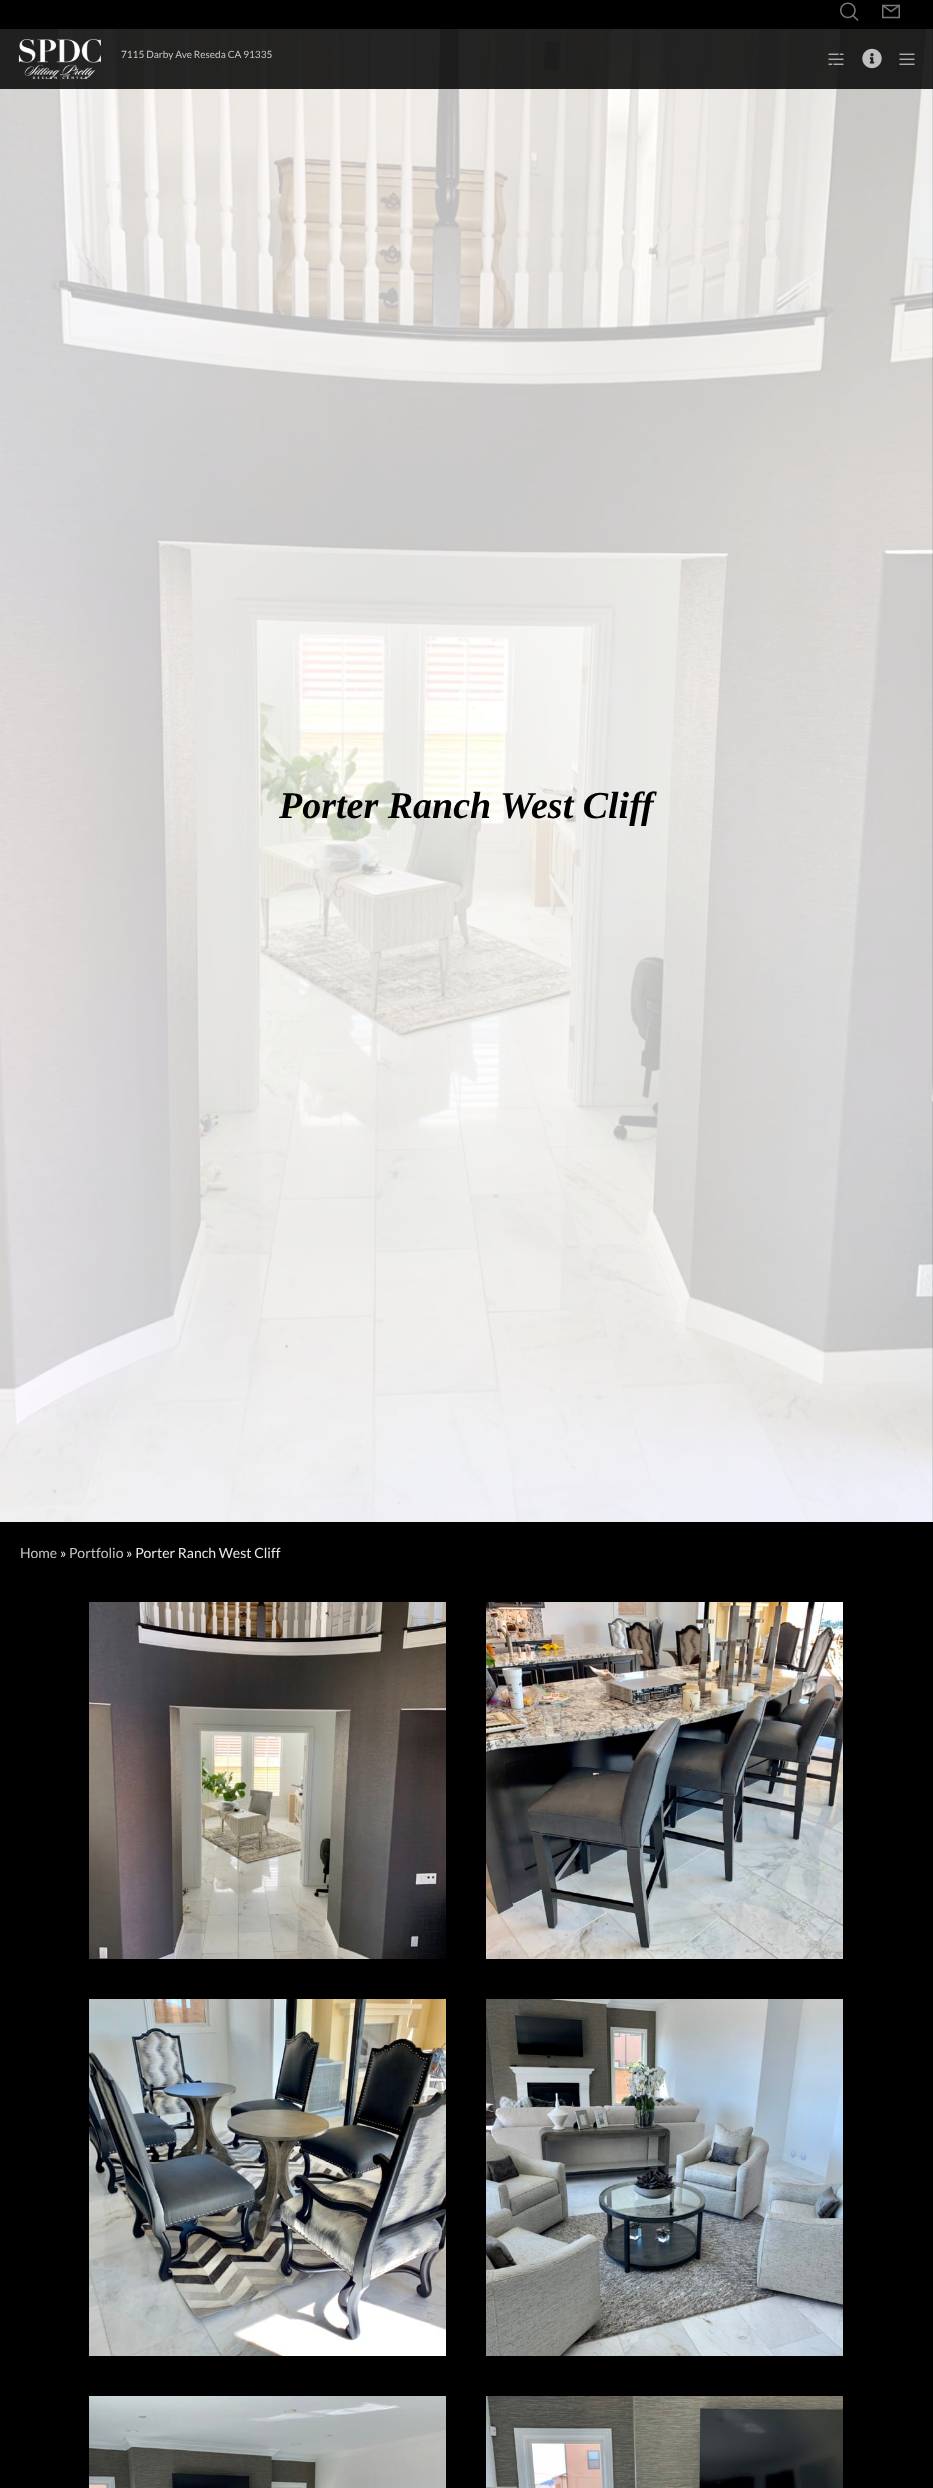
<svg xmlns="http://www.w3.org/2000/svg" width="933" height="2488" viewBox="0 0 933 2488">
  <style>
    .t1 { font: 10px Lato; fill: #c6c6c6; }
    .t2 { font: italic bold 38px Liberation Serif; fill: #000; }
    .t3 { font: 14px Lato; fill: #c6c6c6; }
    .t4 { font: 14px Lato; fill: #eaeaea; }
  </style>
  <rect width="100%" height="100%" fill="#000"/>
  <image x="840" y="2" width="19" height="19" href="images/1.png"/>
  <image x="882" y="4" width="18" height="15" href="images/2.png"/>
  <image x="0" y="29" width="933" height="1493" href="images/7.png"/>
  <rect x="0" y="29" width="933" height="60" fill="#000000d9"/>
  <image x="18" y="39" width="83" height="40" href="images/3.png"/>
  <text x="121" y="58" class="t1">7115 Darby Ave Reseda CA 91335</text>
  <image x="828" y="53" width="16" height="12" href="images/4.png"/>
  <image x="862" y="48" width="20" height="21" href="images/5.png"/>
  <image x="899" y="53" width="16" height="12" href="images/6.png"/>
  <text x="279" y="818" class="t2">Porter Ranch West Cliff</text>
  <text x="20" y="1558" class="t3">Home</text>
  <text x="60" y="1558" class="t4">»</text>
  <text x="69" y="1558" class="t3">Portfolio</text>
  <text x="126" y="1558" class="t4">» Porter Ranch West Cliff</text>
  <image x="89" y="1602" width="357" height="357" href="images/8.png"/>
  <image x="486" y="1602" width="357" height="357" href="images/9.png"/>
  <image x="89" y="1999" width="357" height="357" href="images/10.png"/>
  <image x="486" y="1999" width="357" height="357" href="images/11.png"/>
  <image x="89" y="2396" width="357" height="92" href="images/12.png"/>
  <image x="486" y="2396" width="357" height="92" href="images/13.png"/>
</svg>
